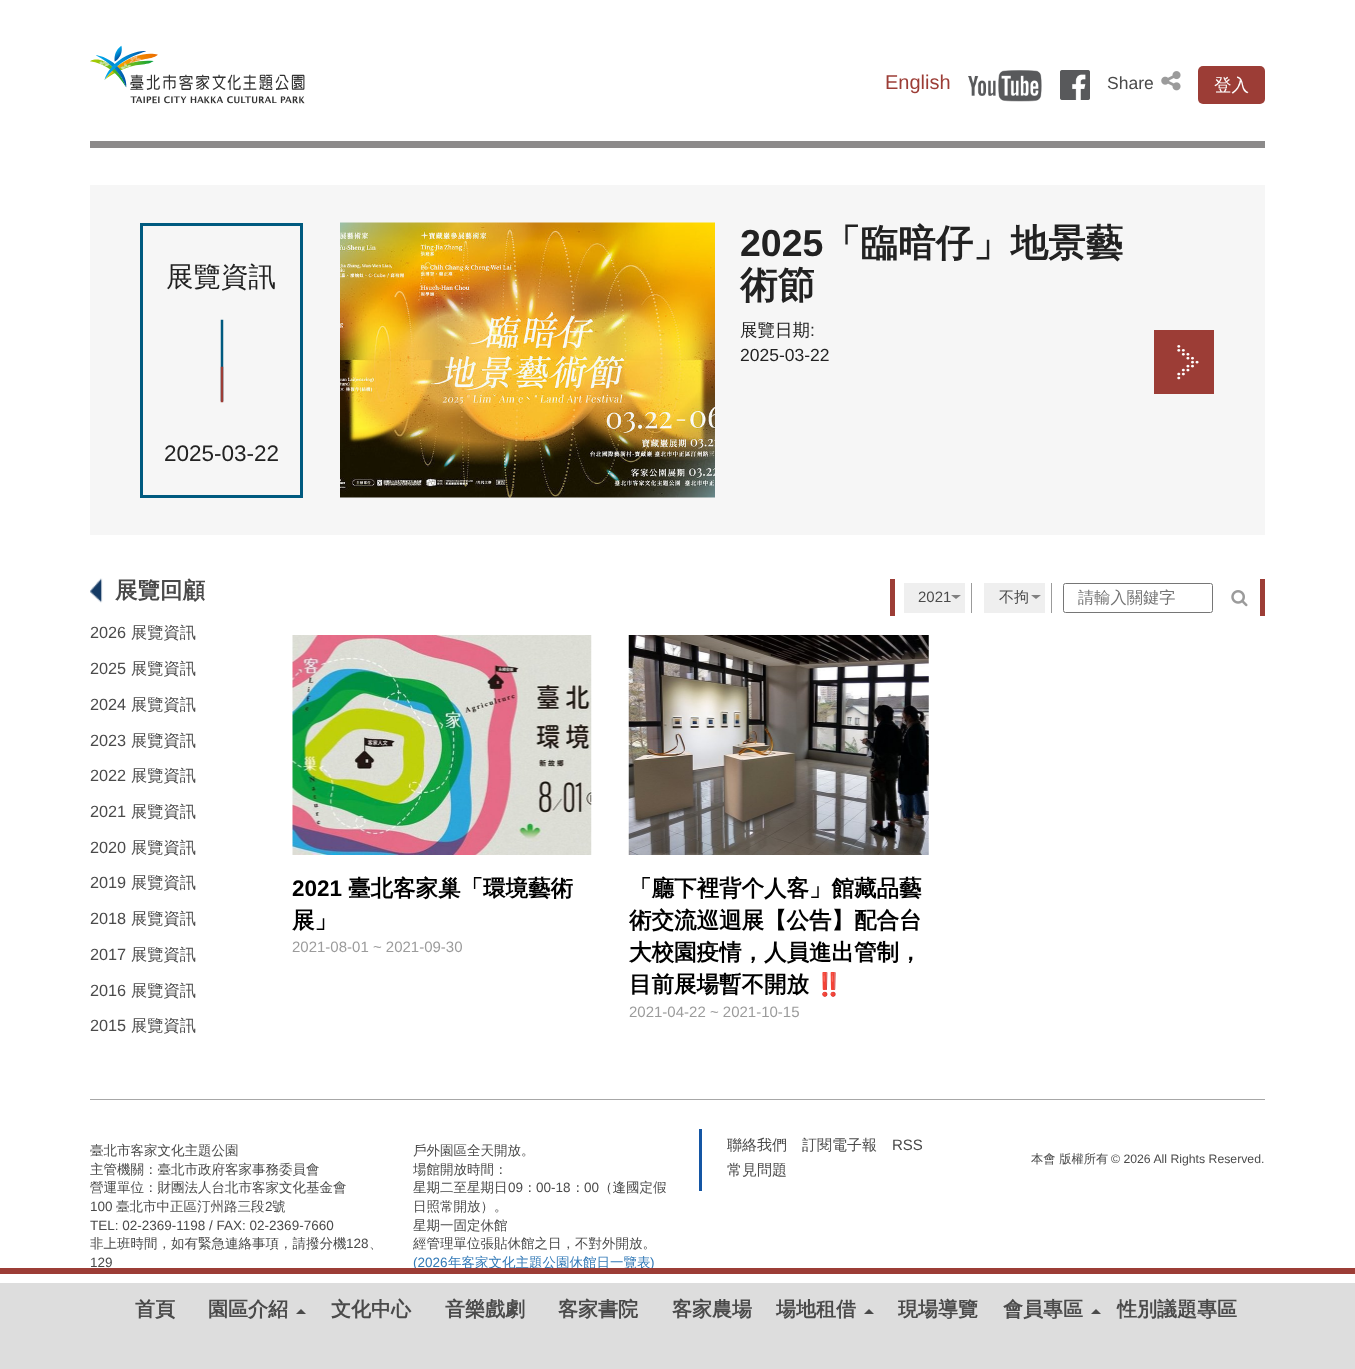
<svg xmlns="http://www.w3.org/2000/svg" width="1355" height="1369" viewBox="0 0 1355 1369">
  <style>
    .t1 { font: 20px Liberation Sans; fill: #9c3d36; }
    .t2 { font: 17.5px Liberation Sans; fill: #4a4a4a; }
    .t3 { font: 500 17.5px WenQuanYi Zen Hei; fill: #fff; }
    .t4 { font: 500 27.5px WenQuanYi Zen Hei; fill: #222; }
    .t5 { font: 22.5px Liberation Sans; fill: #222; }
    .t6 { font: bold 37.5px Liberation Sans; fill: #222; }
    .t7 { font: bold 37.5px WenQuanYi Zen Hei; fill: #222; }
    .t8 { font: 500 17.5px WenQuanYi Zen Hei; fill: #222; }
    .t9 { font: 17.5px Liberation Sans; fill: #222; }
    .t10 { font: bold 22.5px WenQuanYi Zen Hei; fill: #4a4a4a; }
    .t11 { font: 16.25px Liberation Sans; fill: #4a4a4a; }
    .t12 { font: 500 16.25px WenQuanYi Zen Hei; fill: #4a4a4a; }
    .t13 { font: 15px Liberation Sans; fill: #4a4a4a; }
    .t14 { font: 500 15px WenQuanYi Zen Hei; fill: #4a4a4a; }
    .t15 { font: 500 16.25px WenQuanYi Zen Hei; fill: #757575; }
    .t16 { font: bold 22.5px Liberation Sans; fill: #000; }
    .t17 { font: bold 22.5px WenQuanYi Zen Hei; fill: #000; }
    .t18 { font: 15px Liberation Sans; fill: #9b9b9b; }
    .t19 { font: bold 22.5px Noto Color Emoji; fill: #000; }
    .t20 { font: 500 13.5px WenQuanYi Zen Hei; fill: #4a4a4a; }
    .t21 { font: 13.5px Liberation Sans; fill: #4a4a4a; }
    .t22 { font: 13.5px Liberation Sans; fill: #337ab7; }
    .t23 { font: 500 13.5px WenQuanYi Zen Hei; fill: #337ab7; }
    .t24 { font: 500 12.25px WenQuanYi Zen Hei; fill: #4a4a4a; }
    .t25 { font: 12.25px Liberation Sans; fill: #4a4a4a; }
    .t26 { font: bold 20px WenQuanYi Zen Hei; fill: #4a4a4a; }
  </style>
  <rect width="100%" height="100%" fill="#fff"/>
  <image x="90" y="45" width="215" height="59" href="images/1.png"/>
  <text x="885" y="89" class="t1">English</text>
  <image x="968" y="70" width="74" height="32" href="images/2.png"/>
  <image x="1060" y="70" width="30" height="30" href="images/3.png"/>
  <text x="1107" y="89" class="t2">Share</text>
  <image x="1161" y="71" width="20" height="20" href="images/4.png"/>
  <rect x="1198" y="66" width="67" height="38" rx="5" fill="#9c3d36"/>
  <text x="1214" y="91" class="t3">登入</text>
  <rect x="90" y="141" width="1175" height="7" fill="#8c8a8a"/>
  <rect x="90" y="185" width="1175" height="350" fill="#f6f6f6"/>
  <path d="M222 321V400" fill="none" stroke="#005a7f" stroke-width="2.5" stroke-linecap="square"/>
  <path d="M222 368V401" fill="none" stroke="#9c3d36" stroke-width="2.5" stroke-linecap="square"/>
  <rect x="141.5" y="224.5" width="160" height="272" fill="none" stroke="#005a7f" stroke-width="3"/>
  <text x="166" y="286" class="t4">展覽資訊</text>
  <text x="164" y="461" class="t5">2025-03-22</text>
  <image x="340" y="222" width="375" height="276" href="images/5.png"/>
  <text x="740" y="256" class="t6">2025</text>
  <text x="823" y="256" class="t7">「臨暗仔」地景藝</text>
  <text x="740" y="298" class="t7">術節</text>
  <text x="740" y="336" class="t8">展覽日期</text>
  <text x="810" y="336" class="t9">:</text>
  <text x="740" y="361" class="t9">2025-03-22</text>
  <image x="1154" y="330" width="60" height="64" href="images/6.png"/>
  <image x="90" y="578" width="13" height="25" href="images/7.png"/>
  <text x="115" y="598" class="t10">展覽回顧</text>
  <text x="90" y="638" class="t11">2026</text>
  <text x="131" y="638" class="t12">展覽資訊</text>
  <text x="90" y="674" class="t11">2025</text>
  <text x="131" y="674" class="t12">展覽資訊</text>
  <text x="90" y="710" class="t11">2024</text>
  <text x="131" y="710" class="t12">展覽資訊</text>
  <text x="90" y="746" class="t11">2023</text>
  <text x="131" y="746" class="t12">展覽資訊</text>
  <text x="90" y="781" class="t11">2022</text>
  <text x="131" y="781" class="t12">展覽資訊</text>
  <text x="90" y="817" class="t11">2021</text>
  <text x="131" y="817" class="t12">展覽資訊</text>
  <text x="90" y="853" class="t11">2020</text>
  <text x="131" y="853" class="t12">展覽資訊</text>
  <text x="90" y="888" class="t11">2019</text>
  <text x="131" y="888" class="t12">展覽資訊</text>
  <text x="90" y="924" class="t11">2018</text>
  <text x="131" y="924" class="t12">展覽資訊</text>
  <text x="90" y="960" class="t11">2017</text>
  <text x="131" y="960" class="t12">展覽資訊</text>
  <text x="90" y="996" class="t11">2016</text>
  <text x="131" y="996" class="t12">展覽資訊</text>
  <text x="90" y="1031" class="t11">2015</text>
  <text x="131" y="1031" class="t12">展覽資訊</text>
  <rect x="1260" y="579" width="5" height="37" fill="#9c3d36"/>
  <rect x="890" y="579" width="5" height="37" fill="#9c3d36"/>
  <rect x="971" y="583" width="1" height="30" fill="#9b9b9b"/>
  <rect x="904" y="583" width="61" height="30" fill="#efefef"/>
  <text x="918" y="602" class="t13">2021</text>
  <path d="M951 595H961L956 599Z" fill="#808080"/>
  <rect x="1051" y="583" width="1" height="30" fill="#9b9b9b"/>
  <rect x="984" y="583" width="61" height="30" fill="#efefef"/>
  <text x="999" y="602" class="t14">不拘</text>
  <path d="M1031 595H1041L1036 599Z" fill="#808080"/>
  <rect x="1063.5" y="583.5" width="149" height="29" rx="2" fill="none" stroke="#767676"/>
  <text x="1078" y="603" class="t15">請輸入關鍵字</text>
  <image x="1231" y="590" width="17" height="17" href="images/8.png"/>
  <image x="292" y="635" width="300" height="220" href="images/9.png"/>
  <text x="292" y="896" class="t16">2021</text>
  <text x="348" y="896" class="t17">臺北客家巢「環境藝術</text>
  <text x="292" y="928" class="t17">展」</text>
  <text x="292" y="952" class="t18">2021-08-01 ~ 2021-09-30</text>
  <image x="628" y="635" width="301" height="220" href="images/10.png"/>
  <text x="629" y="896" class="t17">「廳下裡背个人客」館藏品藝</text>
  <text x="629" y="928" class="t17">術交流巡迴展【公告】配合台</text>
  <text x="629" y="960" class="t17">大校園疫情，人員進出管制，</text>
  <text x="629" y="992" class="t17">目前展場暫不開放</text>
  <text x="815" y="992" class="t19">‼️</text>
  <text x="629" y="1017" class="t18">2021-04-22 ~ 2021-10-15</text>
  <rect x="90" y="1099" width="1175" height="1" fill="#a7a7a7"/>
  <text x="90" y="1155" class="t20">臺北市客家文化主題公園</text>
  <text x="90" y="1174" class="t20">主管機關：臺北市政府客家事務委員會</text>
  <text x="90" y="1192" class="t20">營運單位：財團法人台北市客家文化基金會</text>
  <text x="90" y="1211" class="t21">100</text>
  <text x="116" y="1211" class="t20">臺北市中正區汀州路三段</text>
  <text x="265" y="1211" class="t21">2</text>
  <text x="272" y="1211" class="t20">號</text>
  <text x="90" y="1230" class="t21">TEL: 02-2369-1198 / FAX: 02-2369-7660</text>
  <text x="90" y="1248" class="t20">非上班時間，如有緊急連絡事項，請撥分機</text>
  <text x="346" y="1248" class="t21">128</text>
  <text x="369" y="1248" class="t20">、</text>
  <text x="90" y="1267" class="t21">129</text>
  <text x="413" y="1155" class="t20">戶外園區全天開放。</text>
  <text x="413" y="1174" class="t20">場館開放時間：</text>
  <text x="413" y="1192" class="t20">星期二至星期日</text>
  <text x="508" y="1192" class="t21">09</text>
  <text x="523" y="1192" class="t20">：</text>
  <text x="536" y="1192" class="t21">00-18</text>
  <text x="571" y="1192" class="t20">：</text>
  <text x="584" y="1192" class="t21">00</text>
  <text x="599" y="1192" class="t20">（逢國定假</text>
  <text x="413" y="1211" class="t20">日照常開放）。</text>
  <text x="413" y="1230" class="t20">星期一固定休館</text>
  <text x="413" y="1248" class="t20">經管理單位張貼休館之日，不對外開放。</text>
  <text x="413" y="1267" class="t22">(2026</text>
  <text x="448" y="1267" class="t23">年客家文化主題公園休館日一覽表</text>
  <text x="650" y="1267" class="t22">)</text>
  <rect x="699" y="1129" width="3" height="62" fill="#1456a4"/>
  <text x="727" y="1150" class="t14">聯絡我們</text>
  <text x="802" y="1150" class="t14">訂閱電子報</text>
  <text x="892" y="1150" class="t13">RSS</text>
  <text x="727" y="1175" class="t14">常見問題</text>
  <text x="1031" y="1163" class="t24">本會 版權所有</text>
  <text x="1111" y="1163" class="t25">© 2026 All Rights Reserved.</text>
  <rect x="0" y="1268" width="1355" height="6" fill="#9c3d36"/>
  <rect x="0" y="1283" width="1355" height="86" fill="#ddd"/>
  <text x="135" y="1316" class="t26">首頁</text>
  <text x="208" y="1316" class="t26">園區介紹</text>
  <path d="M306 1314H296L301 1309Z" fill="#4a4a4a"/>
  <text x="331" y="1316" class="t26">文化中心</text>
  <text x="445" y="1316" class="t26">音樂戲劇</text>
  <text x="558" y="1316" class="t26">客家書院</text>
  <text x="672" y="1316" class="t26">客家農場</text>
  <text x="776" y="1316" class="t26">場地租借</text>
  <path d="M874 1314H864L869 1309Z" fill="#4a4a4a"/>
  <text x="898" y="1316" class="t26">現場導覽</text>
  <text x="1003" y="1316" class="t26">會員專區</text>
  <path d="M1101 1314H1091L1096 1309Z" fill="#4a4a4a"/>
  <text x="1117" y="1316" class="t26">性別議題專區</text>
</svg>
